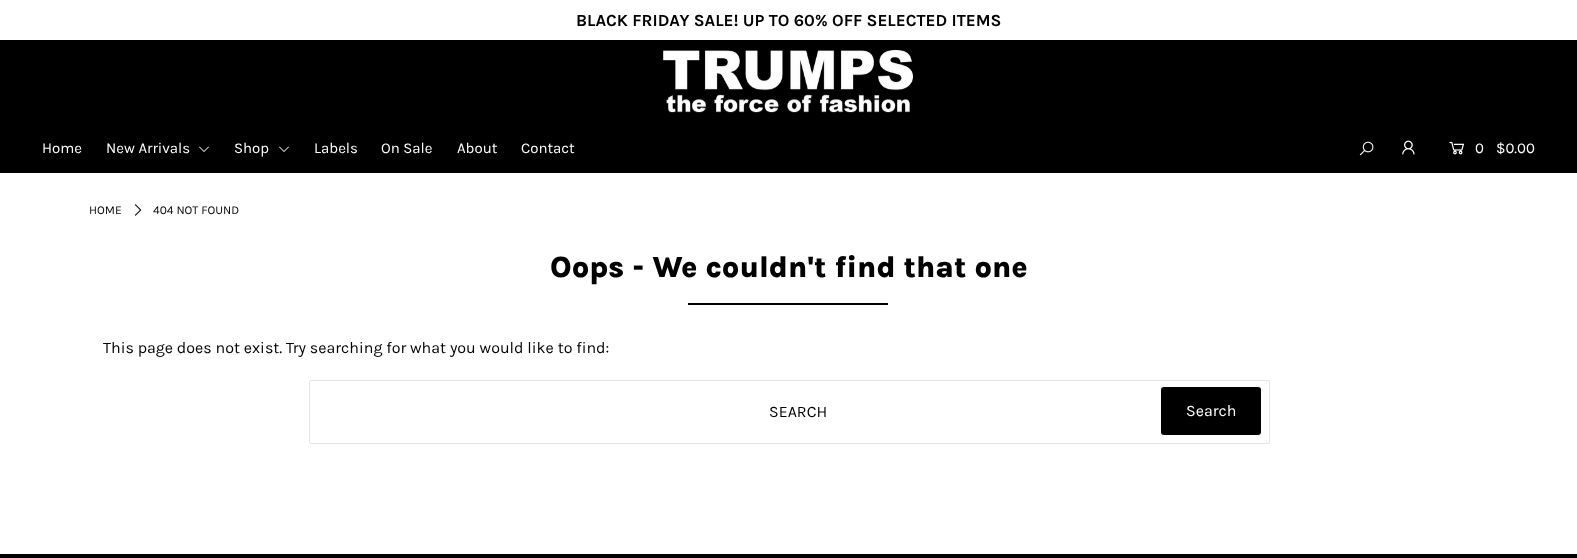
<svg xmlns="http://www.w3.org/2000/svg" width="1577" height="558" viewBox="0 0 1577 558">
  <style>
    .t1 { font: bold 17px Karla; fill: #000; }
    .t2 { font: 15px Karla; fill: #fff; }
    .t3 { font: 12px Karla; fill: #000; }
    .t4 { font: 800 30px Karla; fill: #000; }
    .t5 { font: 16px Karla; fill: #000; }
    .t6 { font: 16px Karla; fill: #fff; }
  </style>
  <rect width="100%" height="100%" fill="#fff"/>
  <rect x="0" y="40" width="1577" height="133" fill="#000"/>
  <text x="576" y="26" class="t1">BLACK FRIDAY SALE! UP TO 60% OFF SELECTED ITEMS</text>
  <image x="663" y="50" width="250" height="63" href="images/1.png"/>
  <text x="42" y="153" class="t2">Home</text>
  <text x="106" y="153" class="t2">New Arrivals</text>
  <image x="199" y="146" width="10" height="6" href="images/2.png"/>
  <text x="234" y="153" class="t2">Shop</text>
  <image x="279" y="146" width="10" height="6" href="images/2.png"/>
  <text x="314" y="153" class="t2">Labels</text>
  <text x="381" y="153" class="t2">On Sale</text>
  <text x="457" y="153" class="t2">About</text>
  <text x="521" y="153" class="t2">Contact</text>
  <image x="1359" y="141" width="15" height="15" href="images/3.png"/>
  <image x="1402" y="140" width="13" height="15" href="images/4.png"/>
  <image x="1449" y="141" width="16" height="14" href="images/5.png"/>
  <text x="1475" y="153" class="t2">0</text>
  <text x="1496" y="153" class="t2">$0.00</text>
  <text x="89" y="214" class="t3">HOME</text>
  <image x="134" y="204" width="8" height="12" href="images/6.png"/>
  <text x="153" y="214" class="t3">404 NOT FOUND</text>
  <text x="550" y="277" class="t4">Oops - We couldn't find that one</text>
  <rect x="688" y="303" width="200" height="2" fill="#000"/>
  <text x="103" y="353" class="t5">This page does not exist. Try searching for what you would like to find:</text>
  <rect x="309.5" y="380.5" width="960" height="63" rx="1.5" fill="none" stroke="#e5e5e5"/>
  <text x="769" y="417" class="t5">SEARCH</text>
  <rect x="1161" y="387" width="100" height="48" rx="3" fill="#000"/>
  <text x="1186" y="416" class="t6">Search</text>
  <rect x="0" y="554" width="1577" height="4" fill="#000"/>
</svg>
